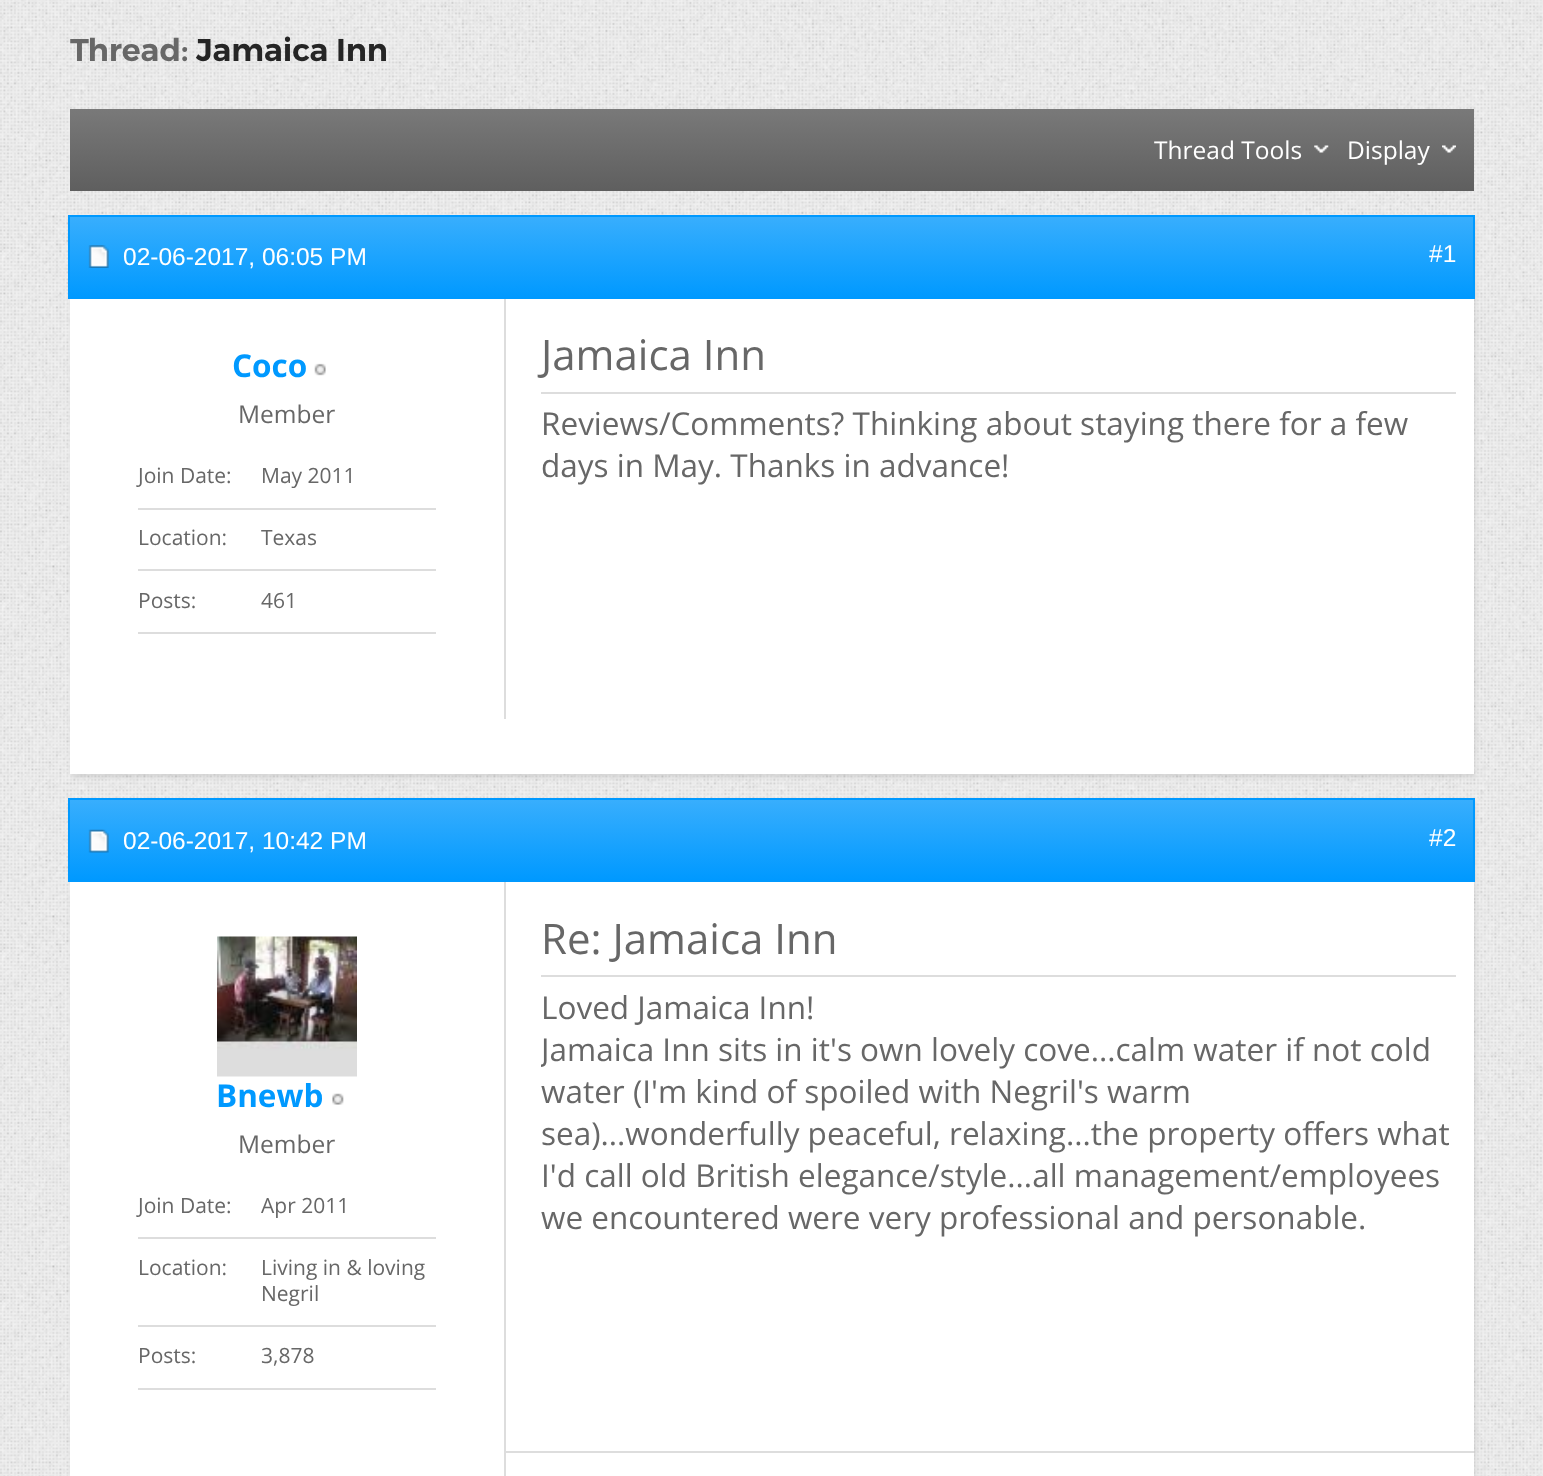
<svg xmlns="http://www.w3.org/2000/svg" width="1543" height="1476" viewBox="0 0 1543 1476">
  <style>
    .t1 { font: 600 31.5px Montserrat; fill: #676767; }
    .t2 { font: 600 31.5px Montserrat; fill: #252525; }
    .t3 { font: 24.5px Open Sans; fill: #fff; }
    .t4 { font: 24.5px Liberation Sans; fill: #fff; }
    .t5 { font: bold 31.5px Open Sans; fill: #09f; }
    .t6 { font: 24.5px Open Sans; fill: #676767; }
    .t7 { font: 21px Open Sans; fill: #676767; }
    .t8 { font: 42px Open Sans; fill: #676767; }
    .t9 { font: 31.5px Open Sans; fill: #676767; }
  </style>
  <defs>
    <linearGradient id="g1" gradientUnits="userSpaceOnUse" x1="772" y1="191" x2="772" y2="109"><stop offset="0.01" stop-color="#5f5f5f"/><stop offset="1" stop-color="#797979"/></linearGradient>
    <linearGradient id="g2" gradientUnits="userSpaceOnUse" x1="772" y1="298" x2="772" y2="217"><stop offset="0" stop-color="#09f"/><stop offset="1" stop-color="#38aefd"/></linearGradient>
    <linearGradient id="g3" gradientUnits="userSpaceOnUse" x1="772" y1="880" x2="772" y2="800"><stop offset="0" stop-color="#09f"/><stop offset="1" stop-color="#38aefd"/></linearGradient>
    <clipPath id="clip1"><rect x="541" y="985" width="915" height="252"/></clipPath>
  </defs>
  <rect width="100%" height="100%" fill="#fff"/>
  <image x="0" y="0" width="1543" height="1476" href="images/1.png"/>
  <text x="70" y="61" class="t1">Thread:</text>
  <text x="196" y="61" class="t2">Jamaica Inn</text>
  <rect x="70" y="109" width="1404" height="82" fill="url(#g1)"/>
  <image x="1314" y="145" width="15" height="8" href="images/2.png"/>
  <text x="1154" y="159" class="t3">Thread Tools</text>
  <image x="1442" y="145" width="14" height="8" href="images/3.png"/>
  <text x="1347" y="159" class="t3">Display</text>
  <rect x="72" y="221" width="1403" height="556" fill="#0000001a" filter="blur(2.5px)"/>
  <rect x="70" y="217" width="1403" height="80" fill="url(#g2)"/>
  <rect x="69" y="216" width="1405" height="82" fill="none" stroke="#09f" stroke-width="2"/>
  <image x="88" y="245" width="21" height="23" href="images/4.png"/>
  <text x="123" y="265" class="t4">02-06-2017, 06:05 PM</text>
  <text x="1429" y="262" class="t4">#1</text>
  <rect x="70" y="299" width="1404" height="475" fill="#fff"/>
  <text x="232" y="377" class="t5">Coco</text>
  <image x="314" y="363" width="12" height="13" href="images/5.png"/>
  <text x="238" y="423" class="t6">Member</text>
  <text x="138" y="483" class="t7">Join Date:</text>
  <rect x="138" y="508" width="298" height="2" fill="#ddd"/>
  <text x="261" y="483" class="t7">May 2011</text>
  <text x="138" y="545" class="t7">Location:</text>
  <rect x="138" y="569" width="298" height="2" fill="#ddd"/>
  <text x="261" y="545" class="t7">Texas</text>
  <text x="138" y="608" class="t7">Posts:</text>
  <rect x="138" y="632" width="298" height="2" fill="#ddd"/>
  <text x="261" y="608" class="t7">461</text>
  <rect x="504" y="299" width="2" height="420" fill="#ddd"/>
  <rect x="541" y="392" width="915" height="2" fill="#ddd"/>
  <text x="541" y="370" class="t8">Jamaica Inn</text>
  <text x="541" y="435" class="t9">Reviews/Comments? Thinking about staying there for a few</text>
  <text x="541" y="477" class="t9">days in May. Thanks in advance!</text>
  <rect x="72" y="803" width="1403" height="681" fill="#0000001a" filter="blur(2.5px)"/>
  <rect x="70" y="800" width="1403" height="80" fill="url(#g3)"/>
  <rect x="69" y="799" width="1405" height="82" fill="none" stroke="#09f" stroke-width="2"/>
  <image x="88" y="829" width="21" height="24" href="images/6.png"/>
  <text x="123" y="849" class="t4">02-06-2017, 10:42 PM</text>
  <text x="1429" y="846" class="t4">#2</text>
  <rect x="70" y="882" width="1404" height="594" fill="#fff"/>
  <image x="217" y="936" width="140" height="141" href="images/7.png"/>
  <text x="216" y="1107" class="t5">Bnewb</text>
  <image x="332" y="1093" width="12" height="12" href="images/8.png"/>
  <text x="238" y="1153" class="t6">Member</text>
  <text x="138" y="1213" class="t7">Join Date:</text>
  <rect x="138" y="1237" width="298" height="2" fill="#ddd"/>
  <text x="261" y="1213" class="t7">Apr 2011</text>
  <text x="138" y="1275" class="t7">Location:</text>
  <rect x="138" y="1325" width="298" height="2" fill="#ddd"/>
  <text x="261" y="1275" class="t7">Living in &amp; loving</text>
  <text x="261" y="1301" class="t7">Negril</text>
  <text x="138" y="1363" class="t7">Posts:</text>
  <rect x="138" y="1388" width="298" height="2" fill="#ddd"/>
  <text x="261" y="1363" class="t7">3,878</text>
  <rect x="504" y="882" width="2" height="594" fill="#ddd"/>
  <rect x="541" y="975" width="915" height="2" fill="#ddd"/>
  <text x="541" y="954" class="t8">Re: Jamaica Inn</text>
  <text x="541" y="1019" class="t9">Loved Jamaica Inn!</text>
  <g clip-path="url(#clip1)">
    <text x="541" y="1061" class="t9">Jamaica Inn sits in it's own lovely cove...calm water if not cold</text>
  </g>
  <text x="541" y="1103" class="t9">water (I'm kind of spoiled with Negril's warm</text>
  <text x="541" y="1145" class="t9">sea)...wonderfully peaceful, relaxing...the property offers what</text>
  <text x="541" y="1187" class="t9">I'd call old British elegance/style...all management/employees</text>
  <text x="541" y="1229" class="t9">we encountered were very professional and personable.</text>
  <rect x="506" y="1451" width="968" height="2" fill="#ddd"/>
</svg>
